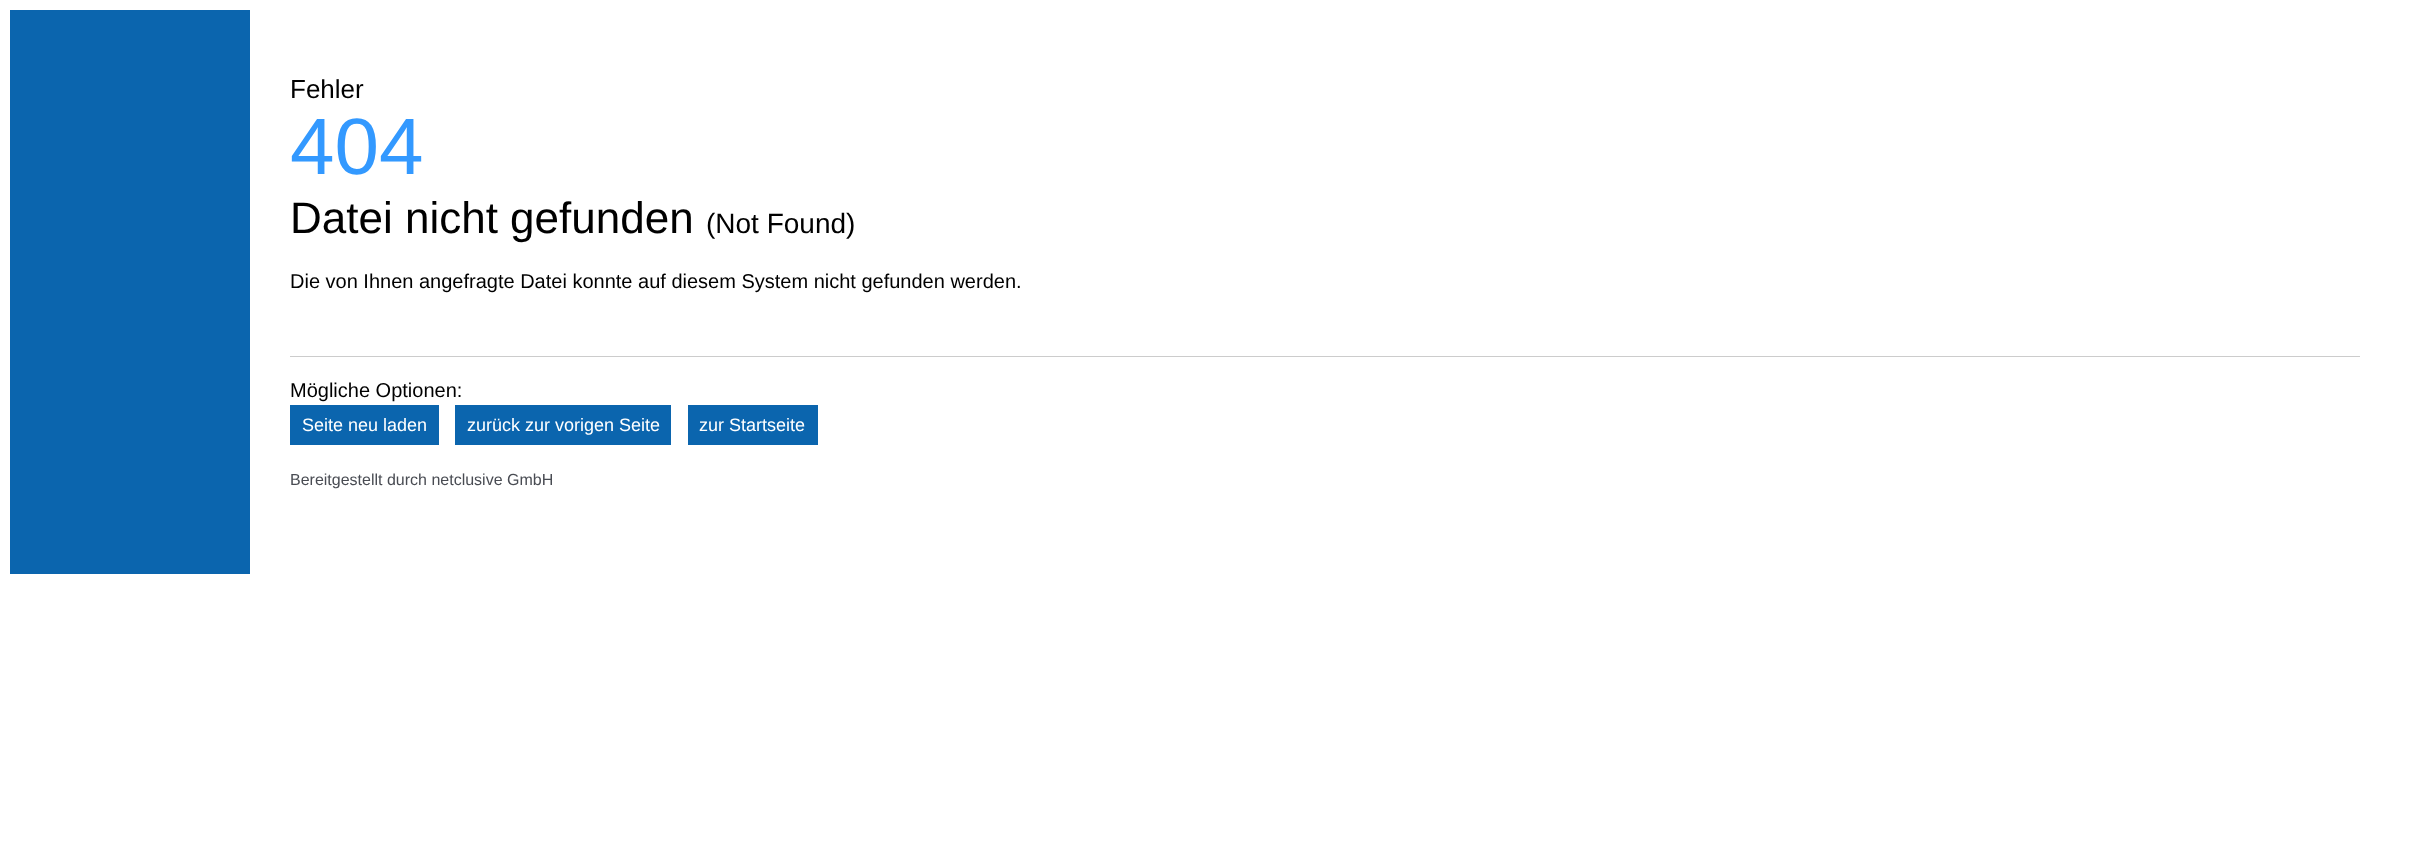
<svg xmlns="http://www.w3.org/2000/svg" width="2409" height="862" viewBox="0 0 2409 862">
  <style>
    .t1 { font: 26px Liberation Sans; fill: #000; }
    .t2 { font: 80px Liberation Sans; fill: #39f; }
    .t3 { font: 44px Liberation Sans; fill: #000; }
    .t4 { font: 28px Liberation Sans; fill: #000; }
    .t5 { font: 20px Liberation Sans; fill: #000; }
    .t6 { font: 18px Liberation Sans; fill: #fff; }
    .t7 { font: 16px Liberation Sans; fill: #494c53; }
  </style>
  <rect width="100%" height="100%" fill="#fff"/>
  <rect x="10" y="10" width="240" height="564" fill="#0b65ae"/>
  <text x="290" y="98" class="t1">Fehler</text>
  <text x="290" y="174" class="t2">404</text>
  <text x="290" y="233" class="t3">Datei nicht gefunden</text>
  <text x="706" y="233" class="t4">(Not Found)</text>
  <text x="290" y="288" class="t5">Die von Ihnen angefragte Datei konnte auf diesem System nicht gefunden werden.</text>
  <rect x="290" y="356" width="2070" height="1" fill="#ccc"/>
  <text x="290" y="397" class="t5">Mögliche Optionen:</text>
  <rect x="290" y="405" width="149" height="40" fill="#0b65ae"/>
  <text x="302" y="431" class="t6">Seite neu laden</text>
  <rect x="455" y="405" width="216" height="40" fill="#0b65ae"/>
  <text x="467" y="431" class="t6">zurück zur vorigen Seite</text>
  <rect x="688" y="405" width="130" height="40" fill="#0b65ae"/>
  <text x="699" y="431" class="t6">zur Startseite</text>
  <text x="290" y="485" class="t7">Bereitgestellt durch netclusive GmbH</text>
</svg>
